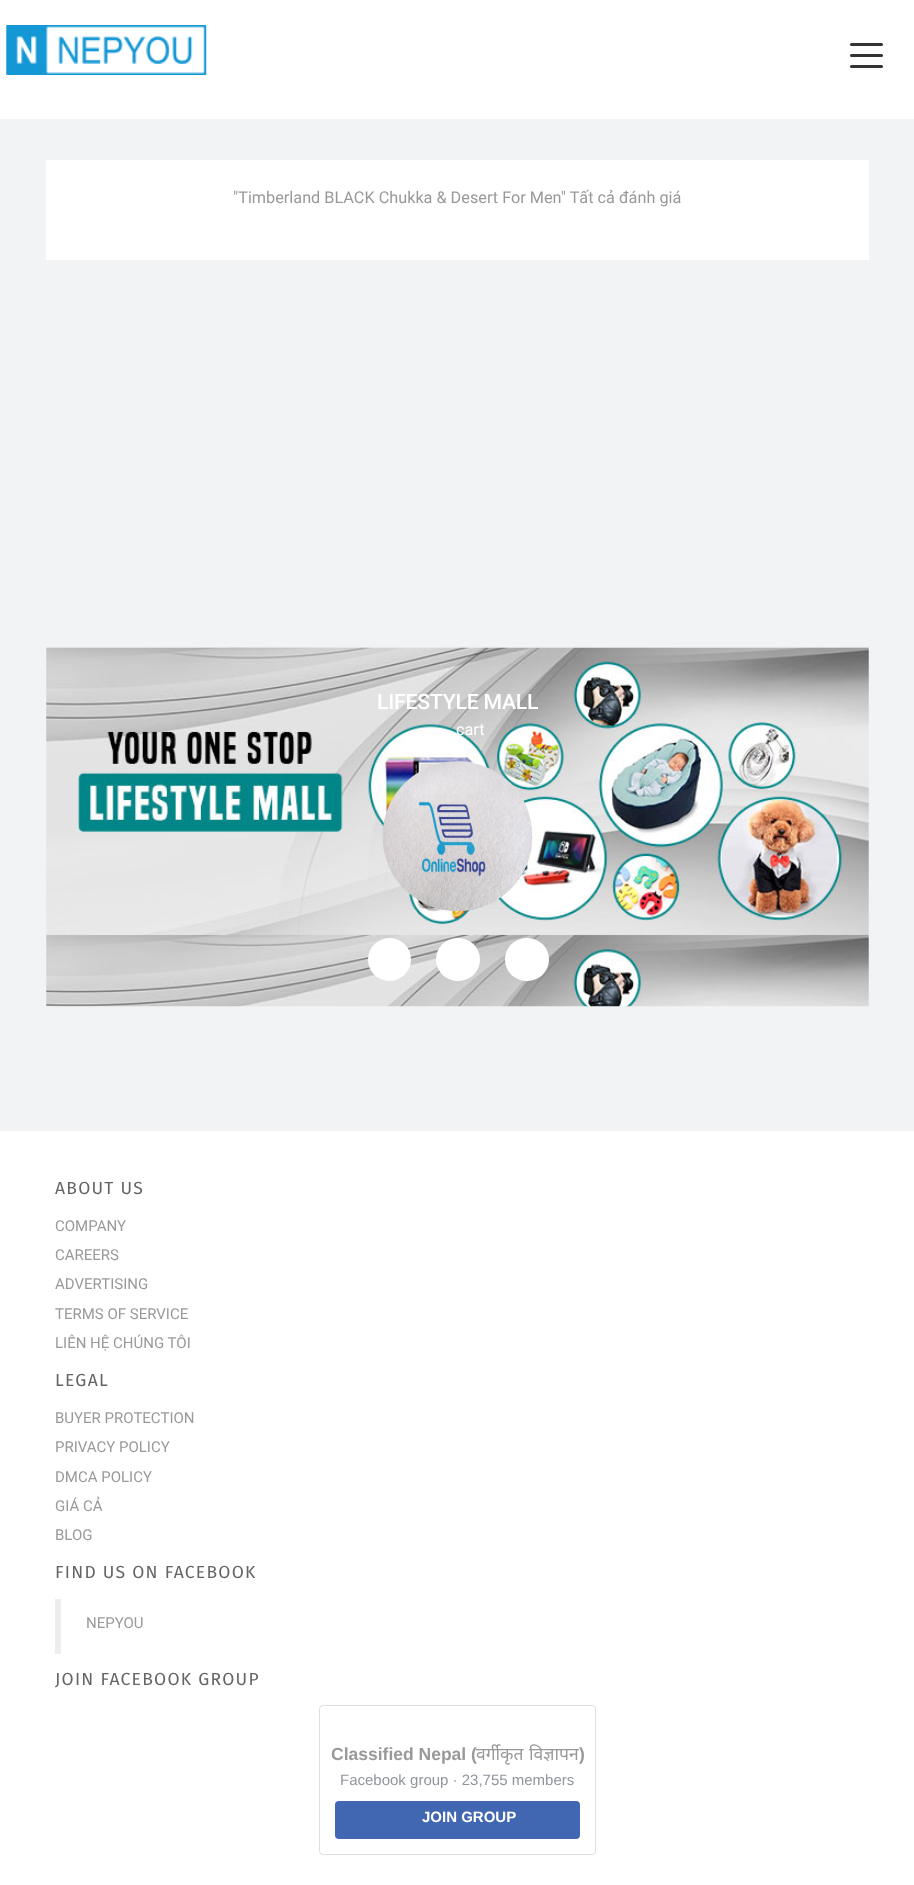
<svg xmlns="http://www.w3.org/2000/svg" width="914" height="1885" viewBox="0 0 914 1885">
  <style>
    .t1 { font: 16.25px Roboto; fill: #999; }
    .t2 { font: 500 21.25px Roboto; letter-spacing: -0.25px; fill: #fff; }
    .t3 { font: 16.25px Roboto; fill: #fff; }
    .t4 { font: 17.5px Fira Sans; letter-spacing: 1.25px; fill: #656565; }
    .t5 { font: 15px Roboto; fill: #999; }
    .t6 { font: bold 17.5px Liberation Sans; fill: #999; }
    .t7 { font: 17.5px Noto Sans; fill: #999; }
    .t8 { font: 15px Liberation Sans; fill: #90949c; }
    .t9 { font: bold 15px Liberation Sans; fill: #fff; }
  </style>
  <rect width="100%" height="100%" fill="#f2f3f5"/>
  <rect x="0" y="0" width="914" height="119" fill="#fff"/>
  <image x="6" y="25" width="201" height="50" href="images/1.png"/>
  <rect x="850" y="43" width="33" height="3" rx="1.5" fill="#333"/>
  <rect x="850" y="54" width="33" height="3" rx="1.5" fill="#333"/>
  <rect x="850" y="65" width="33" height="3" rx="1.5" fill="#333"/>
  <rect x="46" y="160" width="823" height="100" fill="#fff"/>
  <text x="233" y="203" class="t1">"Timberland BLACK Chukka &amp; Desert For Men" Tất cả đánh giá</text>
  <image x="46" y="647" width="823" height="360" href="images/2.png"/>
  <text x="377" y="709" class="t2">LIFESTYLE MALL</text>
  <text x="456" y="735" class="t3">cart</text>
  <image x="382" y="761" width="151" height="151" href="images/3.png"/>
  <circle cx="389.5" cy="959.5" r="21.5" fill="#fff"/>
  <rect x="436" y="938" width="44" height="43" rx="21.5" fill="#fff"/>
  <rect x="505" y="938" width="44" height="43" rx="21.5" fill="#fff"/>
  <rect x="0" y="1131" width="914" height="754" fill="#fff"/>
  <text x="55" y="1194" class="t4">ABOUT US</text>
  <text x="55" y="1231" class="t5">COMPANY</text>
  <text x="55" y="1260" class="t5">CAREERS</text>
  <text x="55" y="1289" class="t5">ADVERTISING</text>
  <text x="55" y="1319" class="t5">TERMS OF SERVICE</text>
  <text x="55" y="1348" class="t5">LIÊN HỆ CHÚNG TÔI</text>
  <text x="55" y="1386" class="t4">LEGAL</text>
  <text x="55" y="1423" class="t5">BUYER PROTECTION</text>
  <text x="55" y="1452" class="t5">PRIVACY POLICY</text>
  <text x="55" y="1482" class="t5">DMCA POLICY</text>
  <text x="55" y="1511" class="t5">GIÁ CẢ</text>
  <text x="55" y="1540" class="t5">BLOG</text>
  <text x="55" y="1578" class="t4">FIND US ON FACEBOOK</text>
  <rect x="55" y="1599" width="6" height="55" fill="#eee"/>
  <text x="86" y="1628" class="t5">NEPYOU</text>
  <text x="55" y="1685" class="t4">JOIN FACEBOOK GROUP</text>
  <rect x="319.5" y="1705.5" width="276" height="149" rx="3.5" fill="none" stroke="#dddfe2"/>
  <text x="331" y="1760" class="t6">Classified Nepal (</text>
  <text x="476" y="1760" class="t7">वर्गीकृत</text>
  <text x="529" y="1760" class="t7">विज्ञापन</text>
  <text x="579" y="1760" class="t6">)</text>
  <text x="340" y="1785" class="t8">Facebook group · 23,755 members</text>
  <rect x="335" y="1801" width="245" height="38" rx="4" fill="#4267b2"/>
  <text x="422" y="1822" class="t9">JOIN GROUP</text>
</svg>
